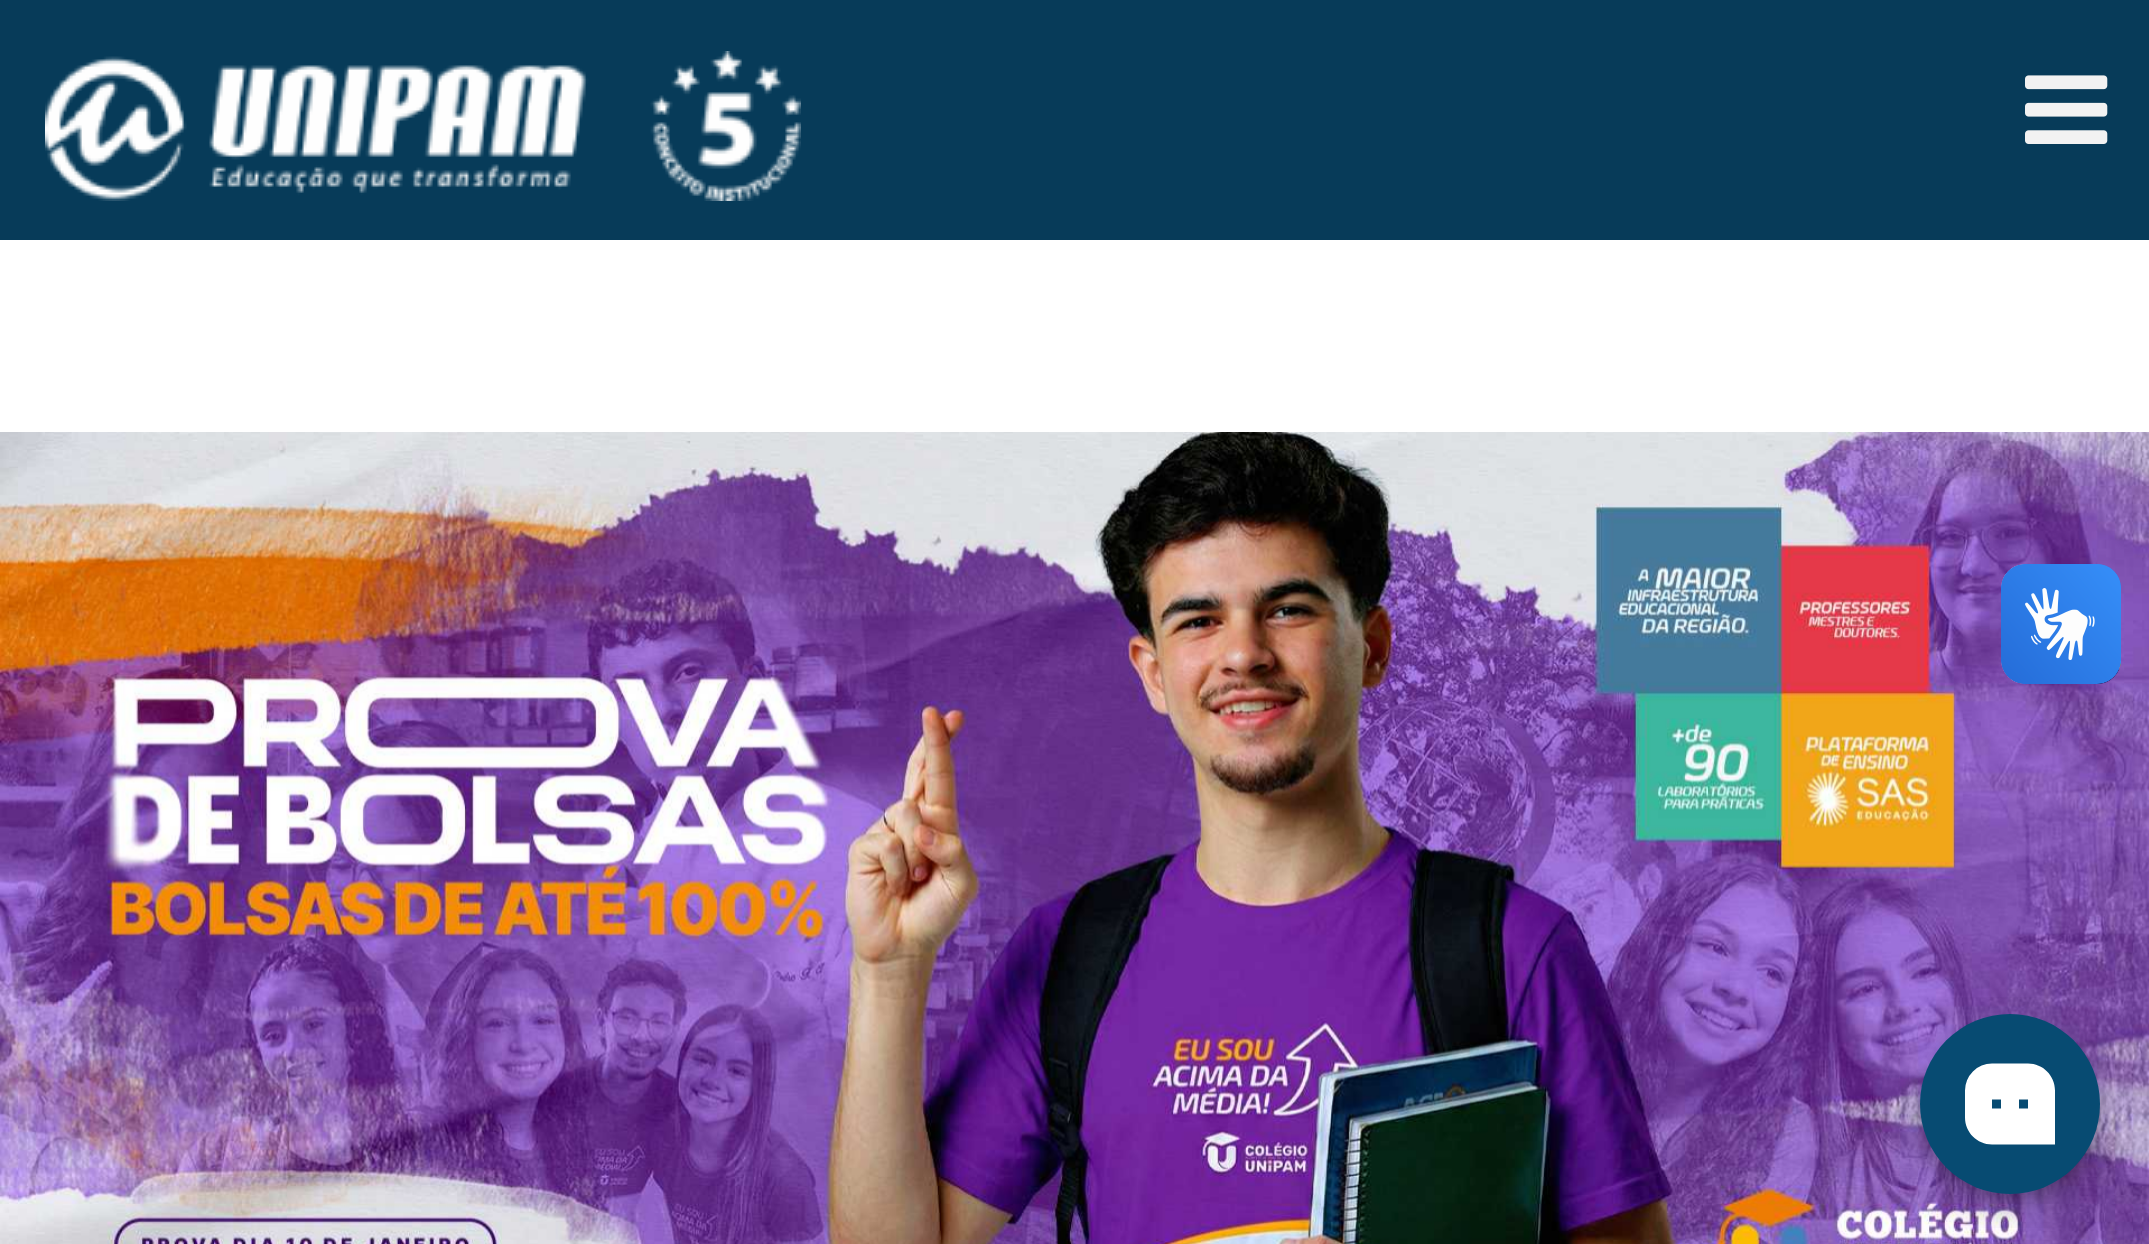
<svg xmlns="http://www.w3.org/2000/svg" width="2149" height="1244" viewBox="0 0 2149 1244">
  <rect width="100%" height="100%" fill="#fff"/>
  <rect x="0" y="0" width="2149" height="240" fill="#073b59"/>
  <image x="45" y="51" width="756" height="150" href="images/1.png"/>
  <image x="2025" y="75" width="83" height="69" href="images/2.png"/>
  <image x="0" y="432" width="2149" height="812" href="images/3.png"/>
  <image x="2001" y="564" width="120" height="120" href="images/4.png"/>
  <image x="2001" y="564" width="120" height="120" href="images/5.png"/>
  <image x="1898" y="997" width="224" height="231" href="images/6.png"/>
</svg>
